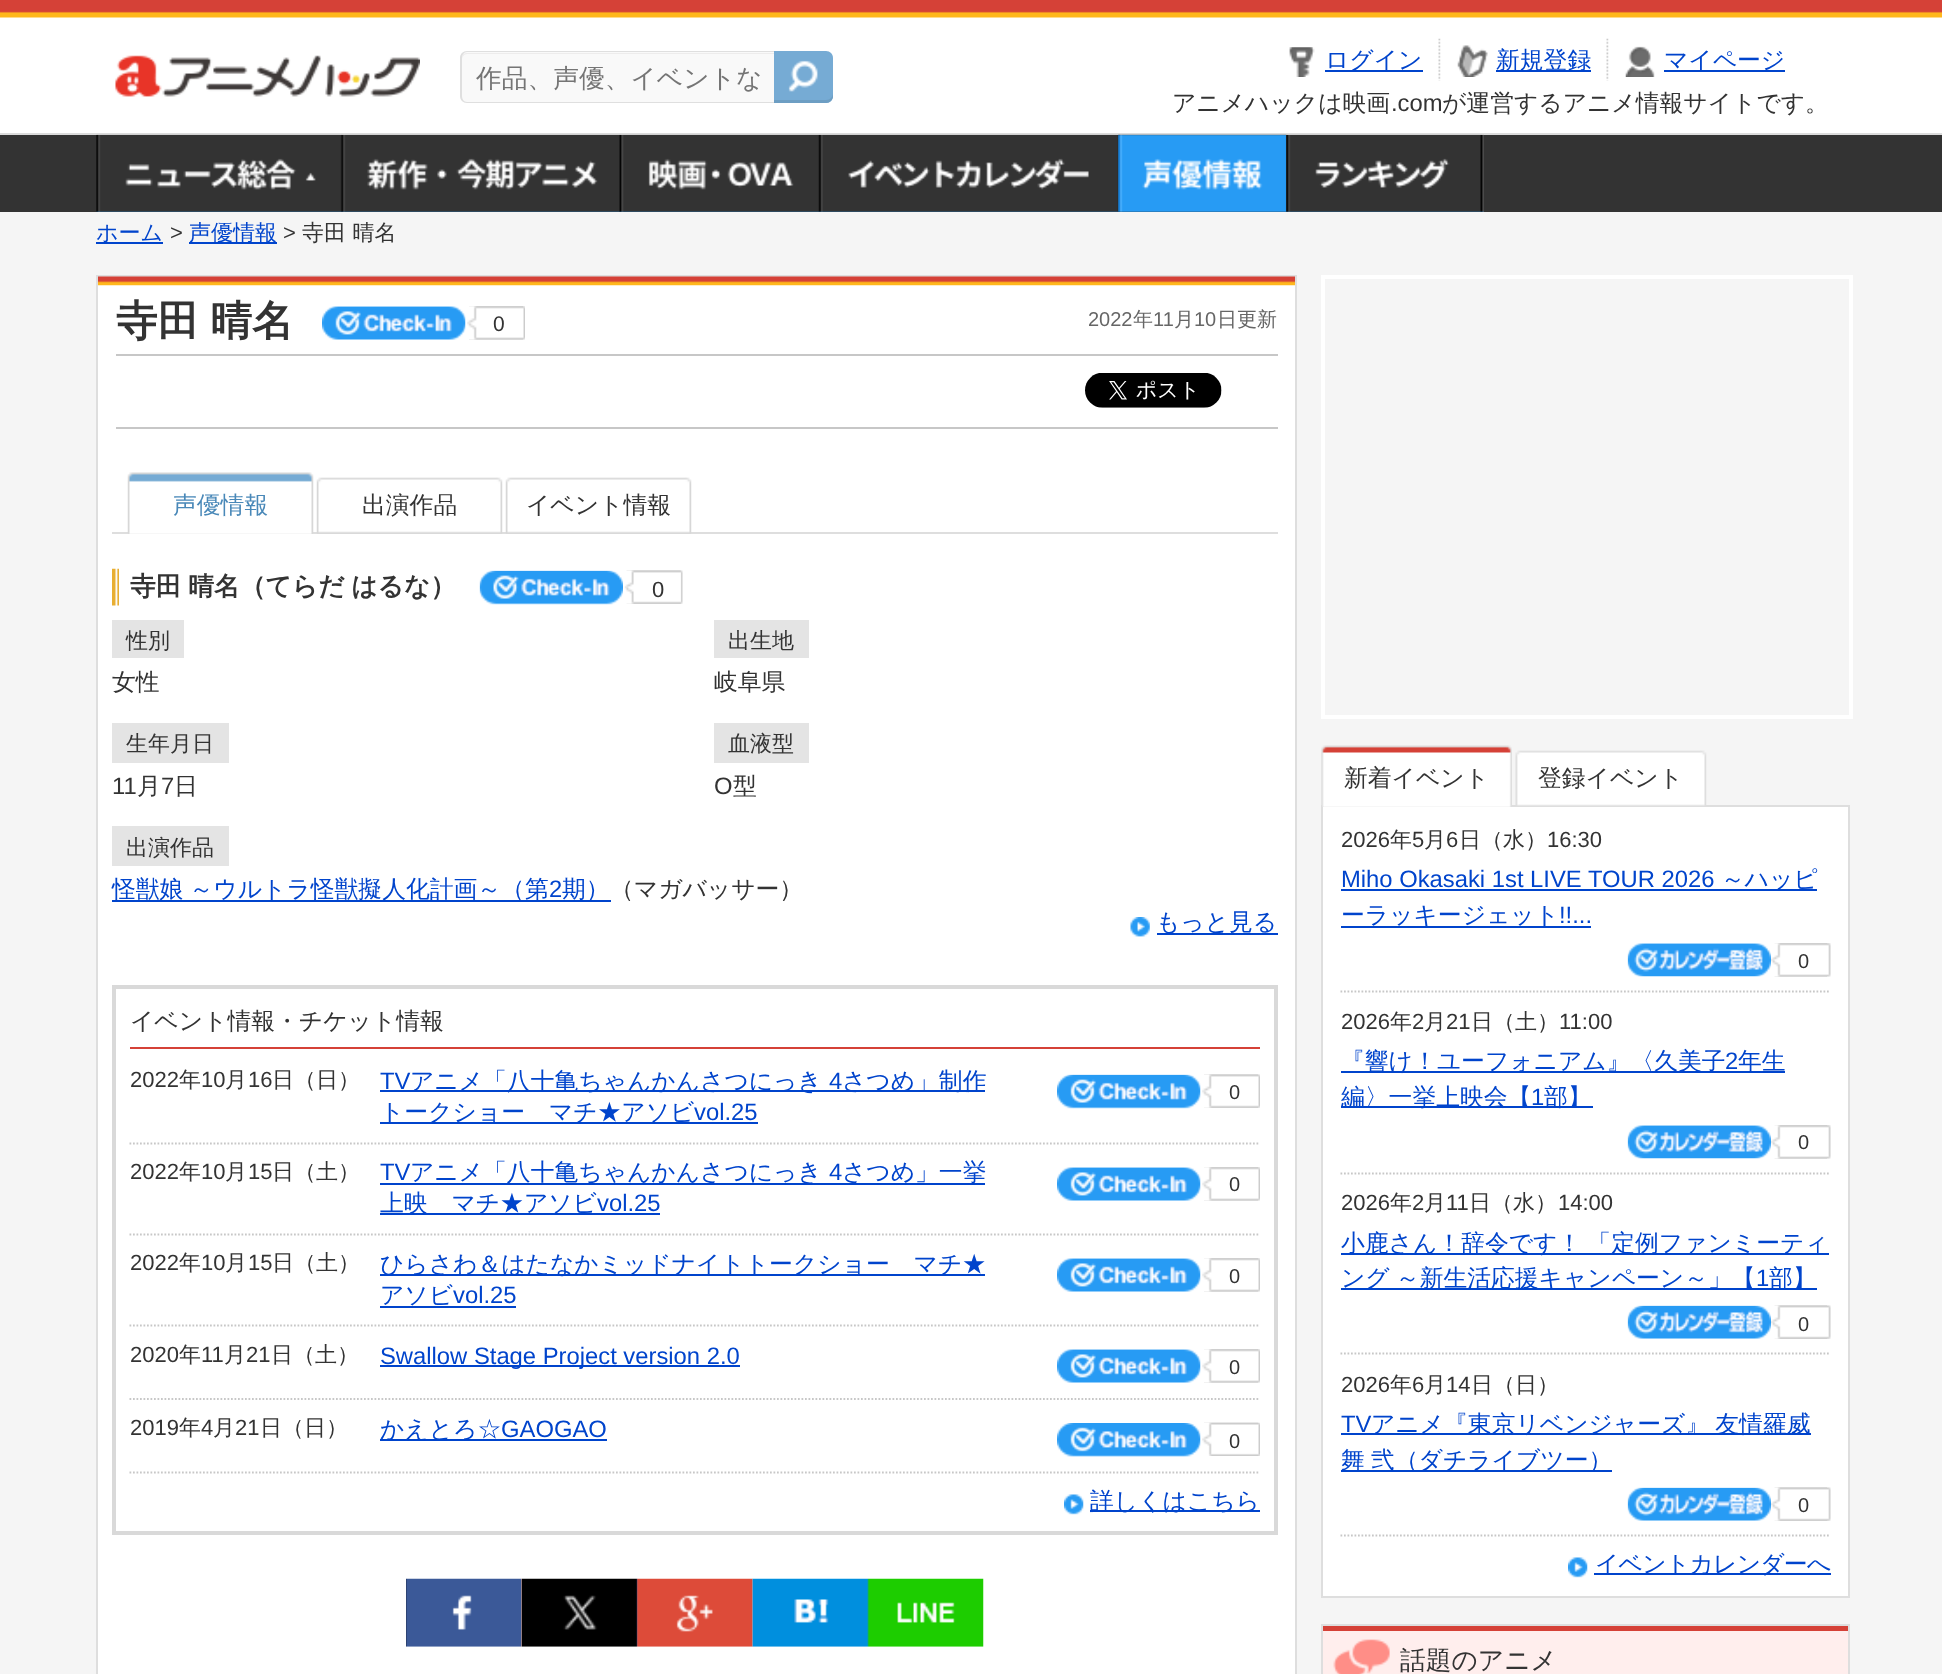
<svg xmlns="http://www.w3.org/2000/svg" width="1942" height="1674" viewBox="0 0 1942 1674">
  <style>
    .t1 { font: 500 25.75px WenQuanYi Zen Hei; fill: #757575; }
    .t2 { font: 500 23.8px WenQuanYi Zen Hei; fill: #04c; }
    .t3 { font: 500 23.8px WenQuanYi Zen Hei; fill: #333; }
    .t4 { font: 23.8px Liberation Sans; fill: #333; }
    .t5 { font: 500 22px WenQuanYi Zen Hei; fill: #04c; }
    .t6 { font: 22px Liberation Sans; fill: #333; }
    .t7 { font: 500 22px WenQuanYi Zen Hei; fill: #333; }
    .t8 { font: bold 41.5px WenQuanYi Zen Hei; fill: #333; }
    .t9 { font: 21px Liberation Sans; fill: #333; }
    .t10 { font: 20px Liberation Sans; fill: #666; }
    .t11 { font: 500 20px WenQuanYi Zen Hei; fill: #666; }
    .t12 { font: 500 23.8px WenQuanYi Zen Hei; fill: #4988b8; }
    .t13 { font: bold 25.75px WenQuanYi Zen Hei; fill: #333; }
    .t14 { font: 23.8px Liberation Sans; fill: #04c; }
    .t15 { font: 20px Liberation Sans; fill: #333; }
    .t16 { font: 500 23.8px WenQuanYi Zen Hei; letter-spacing: -0.75px; fill: #04c; }
    .t17 { font: 500 25.75px WenQuanYi Zen Hei; fill: #333; }
  </style>
  <rect width="100%" height="100%" fill="#f5f5f5"/>
  <rect x="0" y="17" width="1942" height="116" fill="#fff"/>
  <image x="0" y="0" width="1942" height="18" href="images/1.png"/>
  <rect x="0" y="133" width="1942" height="2" fill="#dbdbdb"/>
  <image x="115" y="55" width="305" height="42" href="images/2.png"/>
  <path d="M467 51H774V103H467C463 103 460 100 460 96V58C460 54 463 51 467 51Z" fill="#f9f9f9"/>
  <path d="M467 54H774V53H466C462 54 462 57 462 60C462 57 464 54 467 54Z" fill="#edecec"/>
  <path d="M467 51H774V103H467C463 103 460 100 460 96V58C460 54 463 51 467 51ZM467 52H774V102H467C464 102 462 99 462 96V58C462 55 464 52 467 52Z" fill="#dfdfdf" fill-rule="evenodd"/>
  <text x="476" y="87" class="t1">作品、声優、イベントな</text>
  <path d="M774 51H826C830 51 833 54 833 58V96C833 100 830 103 826 103H774Z" fill="#76abd4"/>
  <path d="M774 100V103H826C830 103 833 100 833 96V93C833 97 830 100 826 100Z" fill="#6d9ec3"/>
  <image x="788" y="60" width="30" height="32" href="images/3.png"/>
  <image x="1438" y="38" width="3" height="43" href="images/4.png"/>
  <image x="1289" y="47" width="26" height="30" href="images/5.png"/>
  <rect x="1325" y="70" width="98" height="2" fill="#04c"/>
  <text x="1325" y="68" class="t2">ログイン</text>
  <image x="1606" y="38" width="3" height="43" href="images/4.png"/>
  <image x="1457" y="45" width="31" height="32" href="images/6.png"/>
  <rect x="1496" y="70" width="95" height="2" fill="#04c"/>
  <text x="1496" y="68" class="t2">新規登録</text>
  <image x="1625" y="46" width="30" height="31" href="images/7.png"/>
  <rect x="1664" y="70" width="121" height="2" fill="#04c"/>
  <text x="1664" y="68" class="t2">マイページ</text>
  <text x="1172" y="111" class="t3">アニメハックは映画</text>
  <text x="1391" y="111" class="t4">.com</text>
  <text x="1442" y="111" class="t3">が運営するアニメ情報サイトです。</text>
  <rect x="0" y="135" width="1942" height="77" fill="#333"/>
  <image x="96" y="134" width="246" height="78" href="images/8.png"/>
  <image x="341" y="134" width="279" height="78" href="images/9.png"/>
  <image x="619" y="134" width="200" height="78" href="images/10.png"/>
  <image x="819" y="134" width="300" height="78" href="images/11.png"/>
  <image x="1118" y="134" width="169" height="78" href="images/12.png"/>
  <image x="1286" y="134" width="198" height="78" href="images/13.png"/>
  <rect x="96" y="242" width="67" height="2" fill="#04c"/>
  <text x="96" y="240" class="t5">ホーム</text>
  <text x="170" y="240" class="t6">&gt;</text>
  <rect x="189" y="242" width="88" height="2" fill="#04c"/>
  <text x="189" y="240" class="t5">声優情報</text>
  <text x="283" y="240" class="t6">&gt;</text>
  <text x="302" y="240" class="t7">寺田 晴名</text>
  <rect x="98" y="285" width="1197" height="1389" fill="#fff"/>
  <rect x="97" y="276" width="1199" height="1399" fill="none" stroke="#dedede" stroke-width="2"/>
  <image x="98" y="276" width="1197" height="10" href="images/14.png"/>
  <rect x="116" y="354" width="1162" height="2" fill="#c7c7c7"/>
  <text x="116" y="335" word-spacing="-1" class="t8">寺田 晴名</text>
  <image x="322" y="306" width="144" height="34" href="images/15.png"/>
  <image x="469" y="306" width="56" height="34" href="images/16.png"/>
  <image x="467" y="306" width="57" height="34" href="images/17.png"/>
  <text x="493" y="331" class="t9">0</text>
  <text x="1088" y="326" class="t10">2022</text>
  <text x="1133" y="326" class="t11">年</text>
  <text x="1153" y="326" class="t10">11</text>
  <text x="1174" y="326" class="t11">月</text>
  <text x="1194" y="326" class="t10">10</text>
  <text x="1217" y="326" class="t11">日更新</text>
  <rect x="116" y="427" width="1162" height="2" fill="#c7c7c7"/>
  <image x="1085" y="373" width="137" height="35" href="images/18.png"/>
  <rect x="112" y="532" width="1166" height="2" fill="#dedede"/>
  <image x="127" y="472" width="187" height="62" href="images/19.png"/>
  <text x="173" y="513" class="t12">声優情報</text>
  <image x="316" y="477" width="187" height="57" href="images/20.png"/>
  <text x="362" y="513" class="t3">出演作品</text>
  <image x="505" y="477" width="187" height="57" href="images/20.png"/>
  <text x="526" y="513" class="t3">イベント情報</text>
  <image x="112" y="568" width="7" height="38" href="images/21.png"/>
  <text x="130" y="595" word-spacing="-1" class="t13">寺田 晴名（てらだ はるな）</text>
  <image x="479" y="570" width="144" height="35" href="images/22.png"/>
  <image x="626" y="570" width="57" height="34" href="images/23.png"/>
  <image x="624" y="570" width="57" height="34" href="images/24.png"/>
  <text x="652" y="597" class="t6">0</text>
  <rect x="112" y="620" width="72" height="38" fill="#e4e4e4"/>
  <text x="126" y="648" class="t7">性別</text>
  <text x="112" y="690" class="t3">女性</text>
  <rect x="112" y="723" width="117" height="40" fill="#e4e4e4"/>
  <text x="126" y="751" class="t7">生年月日</text>
  <text x="112" y="794" class="t4">11</text>
  <text x="137" y="794" class="t3">月</text>
  <text x="161" y="794" class="t4">7</text>
  <text x="174" y="794" class="t3">日</text>
  <rect x="714" y="620" width="95" height="38" fill="#e4e4e4"/>
  <text x="728" y="648" class="t7">出生地</text>
  <text x="714" y="690" class="t3">岐阜県</text>
  <rect x="714" y="723" width="95" height="40" fill="#e4e4e4"/>
  <text x="728" y="751" class="t7">血液型</text>
  <text x="714" y="794" class="t4">O</text>
  <text x="733" y="794" class="t3">型</text>
  <rect x="112" y="826" width="117" height="40" fill="#e4e4e4"/>
  <text x="126" y="855" class="t7">出演作品</text>
  <rect x="112" y="900" width="499" height="2" fill="#04c"/>
  <text x="112" y="897" word-spacing="-1" class="t2">怪獣娘 ～ウルトラ怪獣擬人化計画～（第</text>
  <text x="549" y="897" class="t14">2</text>
  <text x="562" y="897" class="t2">期）</text>
  <text x="610" y="897" class="t3">（マガバッサー）</text>
  <image x="1130" y="917" width="20" height="20" href="images/25.png"/>
  <rect x="1157" y="933" width="121" height="2" fill="#04c"/>
  <text x="1156" y="930" class="t2">もっと見る</text>
  <rect x="114" y="987" width="1162" height="546" fill="none" stroke="#d9d9d9" stroke-width="4"/>
  <rect x="130" y="1047" width="1130" height="2" fill="#d54137"/>
  <text x="130" y="1029" class="t3">イベント情報・チケット情報</text>
  <path d="M129.5 1143.5H1260" fill="none" stroke="#c7c7c7" stroke-width="1.8" stroke-dasharray="1.75 1.75"/>
  <text x="130" y="1087" class="t6">2022</text>
  <text x="179" y="1087" class="t7">年</text>
  <text x="201" y="1087" class="t6">10</text>
  <text x="225" y="1087" class="t7">月</text>
  <text x="248" y="1087" class="t6">16</text>
  <text x="272" y="1087" class="t7">日（日）</text>
  <text x="380" y="1089" class="t14">TV</text>
  <rect x="380" y="1090" width="605" height="2" fill="#04c"/>
  <text x="410" y="1089" class="t2">アニメ「八十亀ちゃんかんさつにっき</text>
  <text x="829" y="1089" class="t14">4</text>
  <text x="842" y="1089" class="t2">さつめ」制作</text>
  <rect x="380" y="1122" width="378" height="2" fill="#04c"/>
  <text x="380" y="1120" class="t2">トークショー　マチ★アソビ</text>
  <text x="694" y="1120" class="t14">vol.25</text>
  <image x="1057" y="1074" width="144" height="35" href="images/26.png"/>
  <image x="1204" y="1074" width="56" height="34" href="images/27.png"/>
  <image x="1202" y="1074" width="57" height="34" href="images/28.png"/>
  <text x="1229" y="1099" class="t15">0</text>
  <path d="M129.5 1234.5H1260" fill="none" stroke="#c7c7c7" stroke-width="1.8" stroke-dasharray="1.75 1.75"/>
  <text x="130" y="1179" class="t6">2022</text>
  <text x="179" y="1179" class="t7">年</text>
  <text x="201" y="1179" class="t6">10</text>
  <text x="225" y="1179" class="t7">月</text>
  <text x="248" y="1179" class="t6">15</text>
  <text x="272" y="1179" class="t7">日（土）</text>
  <text x="380" y="1180" class="t14">TV</text>
  <rect x="380" y="1183" width="605" height="2" fill="#04c"/>
  <text x="410" y="1180" class="t2">アニメ「八十亀ちゃんかんさつにっき</text>
  <text x="829" y="1180" class="t14">4</text>
  <text x="842" y="1180" class="t2">さつめ」一挙</text>
  <rect x="380" y="1213" width="280" height="2" fill="#04c"/>
  <text x="380" y="1211" class="t2">上映　マチ★アソビ</text>
  <text x="597" y="1211" class="t14">vol.25</text>
  <image x="1057" y="1167" width="144" height="34" href="images/15.png"/>
  <image x="1204" y="1167" width="56" height="34" href="images/16.png"/>
  <image x="1202" y="1167" width="57" height="34" href="images/17.png"/>
  <text x="1229" y="1191" class="t15">0</text>
  <path d="M129.5 1325.5H1260" fill="none" stroke="#c7c7c7" stroke-width="1.8" stroke-dasharray="1.75 1.75"/>
  <text x="130" y="1270" class="t6">2022</text>
  <text x="179" y="1270" class="t7">年</text>
  <text x="201" y="1270" class="t6">10</text>
  <text x="225" y="1270" class="t7">月</text>
  <text x="248" y="1270" class="t6">15</text>
  <text x="272" y="1270" class="t7">日（土）</text>
  <rect x="380" y="1274" width="605" height="2" fill="#04c"/>
  <text x="380" y="1272" class="t2">ひらさわ＆はたなかミッドナイトトークショー　マチ★</text>
  <text x="380" y="1303" class="t2">アソビ</text>
  <rect x="380" y="1306" width="136" height="2" fill="#04c"/>
  <text x="453" y="1303" class="t14">vol.25</text>
  <image x="1057" y="1258" width="144" height="34" href="images/15.png"/>
  <image x="1204" y="1258" width="56" height="34" href="images/16.png"/>
  <image x="1202" y="1258" width="57" height="34" href="images/17.png"/>
  <text x="1229" y="1283" class="t15">0</text>
  <path d="M129.5 1399H1260" fill="none" stroke="#c7c7c7" stroke-width="1.8" stroke-dasharray="1.75 1.75"/>
  <text x="130" y="1362" class="t6">2020</text>
  <text x="179" y="1362" class="t7">年</text>
  <text x="201" y="1362" class="t6">11</text>
  <text x="224" y="1362" class="t7">月</text>
  <text x="246" y="1362" class="t6">21</text>
  <text x="271" y="1362" class="t7">日（土）</text>
  <rect x="380" y="1365" width="360" height="2" fill="#04c"/>
  <text x="380" y="1364" class="t14">Swallow Stage Project version 2.0</text>
  <image x="1057" y="1349" width="144" height="34" href="images/15.png"/>
  <image x="1204" y="1349" width="56" height="34" href="images/16.png"/>
  <image x="1202" y="1349" width="57" height="34" href="images/17.png"/>
  <text x="1229" y="1374" class="t15">0</text>
  <path d="M129.5 1472.5H1260" fill="none" stroke="#c7c7c7" stroke-width="1.8" stroke-dasharray="1.75 1.75"/>
  <text x="130" y="1435" class="t6">2019</text>
  <text x="179" y="1435" class="t7">年</text>
  <text x="201" y="1435" class="t6">4</text>
  <text x="213" y="1435" class="t7">月</text>
  <text x="235" y="1435" class="t6">21</text>
  <text x="260" y="1435" class="t7">日（日）</text>
  <rect x="380" y="1439" width="227" height="2" fill="#04c"/>
  <text x="380" y="1437" class="t2">かえとろ☆</text>
  <text x="501" y="1437" class="t14">GAOGAO</text>
  <image x="1057" y="1423" width="144" height="34" href="images/29.png"/>
  <image x="1204" y="1422" width="56" height="34" href="images/30.png"/>
  <image x="1202" y="1422" width="57" height="34" href="images/31.png"/>
  <text x="1229" y="1448" class="t15">0</text>
  <image x="1064" y="1494" width="20" height="21" href="images/32.png"/>
  <rect x="1090" y="1510" width="170" height="2" fill="#04c"/>
  <text x="1090" y="1509" class="t2">詳しくはこちら</text>
  <image x="406" y="1578" width="116" height="69" href="images/33.png"/>
  <image x="521" y="1578" width="116" height="69" href="images/34.png"/>
  <image x="637" y="1578" width="116" height="69" href="images/35.png"/>
  <image x="752" y="1578" width="116" height="69" href="images/36.png"/>
  <image x="868" y="1578" width="116" height="69" href="images/37.png"/>
  <rect x="1323" y="277" width="528" height="440" fill="none" stroke="#fff" stroke-width="4"/>
  <rect x="1322" y="806" width="527" height="791" fill="#fff" stroke="#dedede" stroke-width="2"/>
  <image x="1321" y="745" width="191" height="62" href="images/38.png"/>
  <text x="1344" y="786" class="t3">新着イベント</text>
  <image x="1515" y="750" width="192" height="56" href="images/39.png"/>
  <text x="1538" y="786" class="t3">登録イベント</text>
  <path d="M1340.5 991.5H1830.5" fill="none" stroke="#c7c7c7" stroke-width="1.8" stroke-dasharray="1.75 1.75"/>
  <text x="1341" y="847" class="t6">2026</text>
  <text x="1390" y="847" class="t7">年</text>
  <text x="1412" y="847" class="t6">5</text>
  <text x="1424" y="847" class="t7">月</text>
  <text x="1446" y="847" class="t6">6</text>
  <text x="1459" y="847" class="t7">日（水）</text>
  <text x="1547" y="847" class="t6">16:30</text>
  <text x="1341" y="887" class="t14">Miho Okasaki 1st LIVE TOUR 2026</text>
  <rect x="1341" y="889" width="476" height="2" fill="#04c"/>
  <text x="1721" y="887" class="t2">～ハッピ</text>
  <rect x="1341" y="926" width="250" height="2" fill="#04c"/>
  <text x="1341" y="923" class="t2">ーラッキージェット</text>
  <text x="1559" y="923" class="t14">!!...</text>
  <image x="1627" y="943" width="144" height="34" href="images/40.png"/>
  <image x="1774" y="943" width="57" height="34" href="images/41.png"/>
  <image x="1771" y="943" width="56" height="34" href="images/42.png"/>
  <text x="1798" y="968" class="t15">0</text>
  <path d="M1340.5 1173.5H1830.5" fill="none" stroke="#c7c7c7" stroke-width="1.8" stroke-dasharray="1.75 1.75"/>
  <text x="1341" y="1029" class="t6">2026</text>
  <text x="1390" y="1029" class="t7">年</text>
  <text x="1412" y="1029" class="t6">2</text>
  <text x="1424" y="1029" class="t7">月</text>
  <text x="1446" y="1029" class="t6">21</text>
  <text x="1471" y="1029" class="t7">日（土）</text>
  <text x="1559" y="1029" class="t6">11:00</text>
  <rect x="1341" y="1071" width="444" height="2" fill="#04c"/>
  <text x="1341" y="1069" class="t2">『響け！ユーフォニアム』〈久美子</text>
  <text x="1725" y="1069" class="t14">2</text>
  <text x="1738" y="1069" class="t2">年生</text>
  <rect x="1341" y="1106" width="252" height="2" fill="#04c"/>
  <text x="1341" y="1105" class="t2">編〉一挙上映会【</text>
  <text x="1531" y="1105" class="t14">1</text>
  <text x="1544" y="1105" class="t2">部】</text>
  <image x="1627" y="1125" width="144" height="34" href="images/40.png"/>
  <image x="1774" y="1125" width="57" height="34" href="images/41.png"/>
  <image x="1771" y="1125" width="56" height="34" href="images/42.png"/>
  <text x="1798" y="1149" class="t15">0</text>
  <path d="M1340.5 1353.5H1830.5" fill="none" stroke="#c7c7c7" stroke-width="1.8" stroke-dasharray="1.75 1.75"/>
  <text x="1341" y="1210" class="t6">2026</text>
  <text x="1390" y="1210" class="t7">年</text>
  <text x="1412" y="1210" class="t6">2</text>
  <text x="1424" y="1210" class="t7">月</text>
  <text x="1446" y="1210" class="t6">11</text>
  <text x="1469" y="1210" class="t7">日（水）</text>
  <text x="1558" y="1210" class="t6">14:00</text>
  <rect x="1341" y="1253" width="488" height="2" fill="#04c"/>
  <text x="1341" y="1251" word-spacing="-1" class="t2">小鹿さん！辞令です！ 「定例ファンミーティ</text>
  <rect x="1341" y="1288" width="476" height="2" fill="#04c"/>
  <text x="1341" y="1286" word-spacing="-1" class="t2">ング ～新生活応援キャンペーン～」【</text>
  <text x="1756" y="1286" class="t14">1</text>
  <text x="1769" y="1286" class="t2">部】</text>
  <image x="1627" y="1305" width="144" height="34" href="images/43.png"/>
  <image x="1774" y="1305" width="57" height="34" href="images/23.png"/>
  <image x="1771" y="1305" width="56" height="34" href="images/44.png"/>
  <text x="1798" y="1331" class="t15">0</text>
  <path d="M1340.5 1535.5H1830.5" fill="none" stroke="#c7c7c7" stroke-width="1.8" stroke-dasharray="1.75 1.75"/>
  <text x="1341" y="1392" class="t6">2026</text>
  <text x="1390" y="1392" class="t7">年</text>
  <text x="1412" y="1392" class="t6">6</text>
  <text x="1424" y="1392" class="t7">月</text>
  <text x="1446" y="1392" class="t6">14</text>
  <text x="1471" y="1392" class="t7">日（日）</text>
  <text x="1341" y="1432" class="t14">TV</text>
  <rect x="1341" y="1433" width="470" height="2" fill="#04c"/>
  <text x="1371" y="1432" word-spacing="-1" class="t2">アニメ『東京リベンジャーズ』 友情羅威</text>
  <rect x="1341" y="1470" width="271" height="2" fill="#04c"/>
  <text x="1341" y="1468" word-spacing="-1" class="t2">舞 弐（ダチライブツー）</text>
  <image x="1627" y="1487" width="144" height="34" href="images/43.png"/>
  <image x="1774" y="1487" width="57" height="34" href="images/23.png"/>
  <image x="1771" y="1487" width="56" height="34" href="images/44.png"/>
  <text x="1798" y="1512" class="t15">0</text>
  <image x="1568" y="1557" width="20" height="21" href="images/32.png"/>
  <rect x="1594" y="1573" width="237" height="2" fill="#04c"/>
  <text x="1595" y="1572" class="t16">イベントカレンダーへ</text>
  <rect x="1322" y="1625" width="527" height="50" fill="none" stroke="#dedede" stroke-width="2"/>
  <rect x="1323" y="1631" width="525" height="43" fill="#ffeeed"/>
  <rect x="1323" y="1626" width="525" height="5" fill="#d54137"/>
  <image x="1333" y="1639" width="57" height="35" href="images/45.png"/>
  <text x="1400" y="1669" class="t17">話題のアニメ</text>
</svg>
